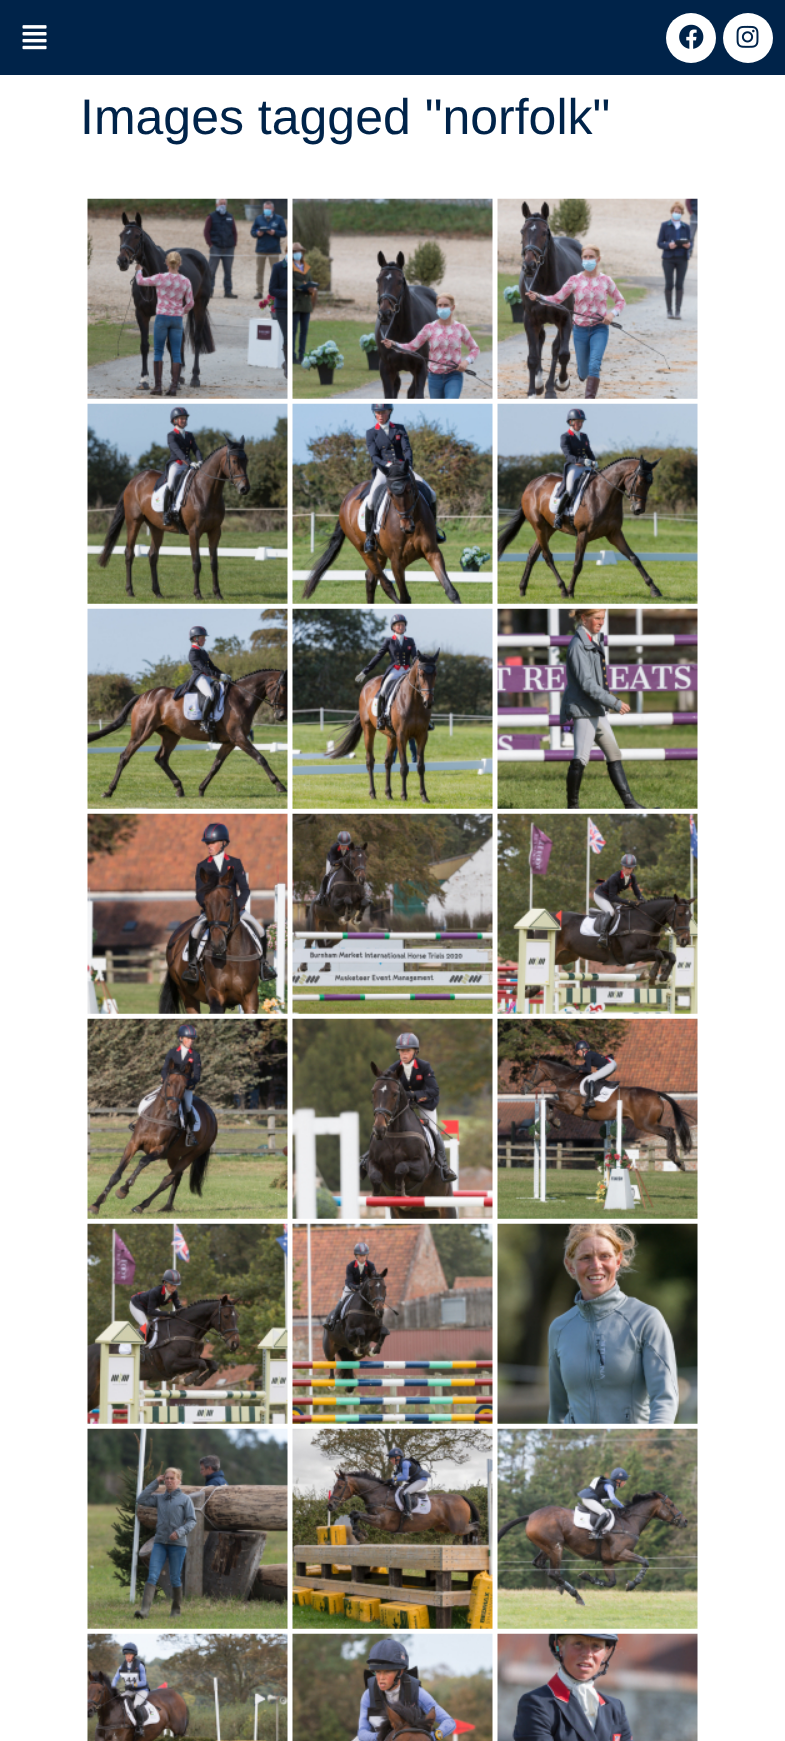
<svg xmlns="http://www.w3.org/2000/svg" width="785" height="1741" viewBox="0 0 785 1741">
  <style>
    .t1 { font: 50px Liberation Sans; fill: #002349; }
  </style>
  <rect width="100%" height="100%" fill="#fff"/>
  <rect x="0" y="0" width="785" height="75" fill="#002349"/>
  <image x="22" y="25" width="25" height="25" href="images/1.png"/>
  <circle cx="691" cy="38" r="25" fill="#fff"/>
  <image x="679" y="24" width="25" height="25" href="images/2.png"/>
  <circle cx="748" cy="38" r="25" fill="#fff"/>
  <image x="736" y="25" width="23" height="23" href="images/3.png"/>
  <text x="80" y="134" class="t1">Images tagged "norfolk"</text>
  <image x="87" y="198" width="201" height="201" href="images/4.png"/>
  <image x="292" y="198" width="201" height="201" href="images/5.png"/>
  <image x="497" y="198" width="201" height="201" href="images/6.png"/>
  <image x="87" y="403" width="201" height="201" href="images/7.png"/>
  <image x="292" y="403" width="201" height="201" href="images/8.png"/>
  <image x="497" y="403" width="201" height="201" href="images/9.png"/>
  <image x="87" y="608" width="201" height="201" href="images/10.png"/>
  <image x="292" y="608" width="201" height="201" href="images/11.png"/>
  <image x="497" y="608" width="201" height="201" href="images/12.png"/>
  <image x="87" y="813" width="201" height="201" href="images/13.png"/>
  <image x="292" y="813" width="201" height="201" href="images/14.png"/>
  <image x="497" y="813" width="201" height="201" href="images/15.png"/>
  <image x="87" y="1018" width="201" height="201" href="images/16.png"/>
  <image x="292" y="1018" width="201" height="201" href="images/17.png"/>
  <image x="497" y="1018" width="201" height="201" href="images/18.png"/>
  <image x="87" y="1223" width="201" height="201" href="images/19.png"/>
  <image x="292" y="1223" width="201" height="201" href="images/20.png"/>
  <image x="497" y="1223" width="201" height="201" href="images/21.png"/>
  <image x="87" y="1428" width="201" height="201" href="images/22.png"/>
  <image x="292" y="1428" width="201" height="201" href="images/23.png"/>
  <image x="497" y="1428" width="201" height="201" href="images/24.png"/>
  <image x="87" y="1633" width="201" height="108" href="images/25.png"/>
  <image x="292" y="1633" width="201" height="108" href="images/26.png"/>
  <image x="497" y="1633" width="201" height="108" href="images/27.png"/>
</svg>
